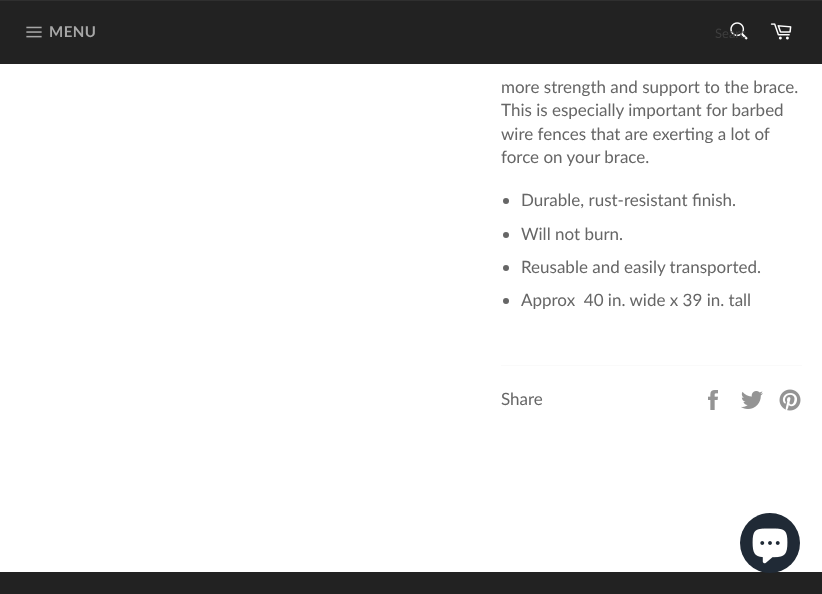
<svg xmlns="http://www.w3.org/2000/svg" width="822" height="594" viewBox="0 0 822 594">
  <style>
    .t1 { font: bold 15px Lato; letter-spacing: 0.5px; fill: #a7a7a7; }
    .t2 { font: 13px Lato; fill: #3e3e3e; }
    .t3 { font: 17px Lato; fill: #666; }
  </style>
  <rect width="100%" height="100%" fill="#fff"/>
  <rect x="0" y="1" width="822" height="63" fill="#222"/>
  <rect x="0" y="0" width="822" height="1" fill="#2f2f2f"/>
  <image x="26" y="26" width="16" height="12" href="images/1.png"/>
  <text x="49" y="37" class="t1">MENU</text>
  <image x="730" y="22" width="18" height="18" href="images/2.png"/>
  <text x="715" y="38" class="t2">Searc</text>
  <image x="770" y="23" width="22" height="17" href="images/3.png"/>
  <text x="501" y="93" class="t3">more strength and support to the brace.</text>
  <text x="501" y="116" class="t3">This is especially important for barbed</text>
  <text x="501" y="140" class="t3">wire fences that are exerting a lot of</text>
  <text x="501" y="163" class="t3">force on your brace.</text>
  <circle cx="506" cy="201" r="3" fill="#666"/>
  <text x="521" y="206" class="t3">Durable, rust-resistant finish.</text>
  <circle cx="506" cy="235" r="3" fill="#666"/>
  <text x="521" y="240" class="t3">Will not burn.</text>
  <circle cx="506" cy="268" r="3" fill="#666"/>
  <text x="521" y="273" class="t3">Reusable and easily transported.</text>
  <circle cx="506" cy="301" r="3" fill="#666"/>
  <text x="521" y="306" class="t3" xml:space="preserve">Approx  40 in. wide x 39 in. tall</text>
  <rect x="501" y="365" width="301" height="1" fill="#fafafa"/>
  <text x="501" y="405" class="t3">Share</text>
  <image x="708" y="390" width="10" height="20" href="images/4.png"/>
  <image x="741" y="391" width="22" height="18" href="images/5.png"/>
  <image x="779" y="389" width="22" height="22" href="images/6.png"/>
  <rect x="0" y="572" width="822" height="22" fill="#222"/>
  <circle cx="770" cy="543" r="30" fill="#202a36"/>
  <image x="752" y="528" width="36" height="36" href="images/7.png"/>
</svg>
